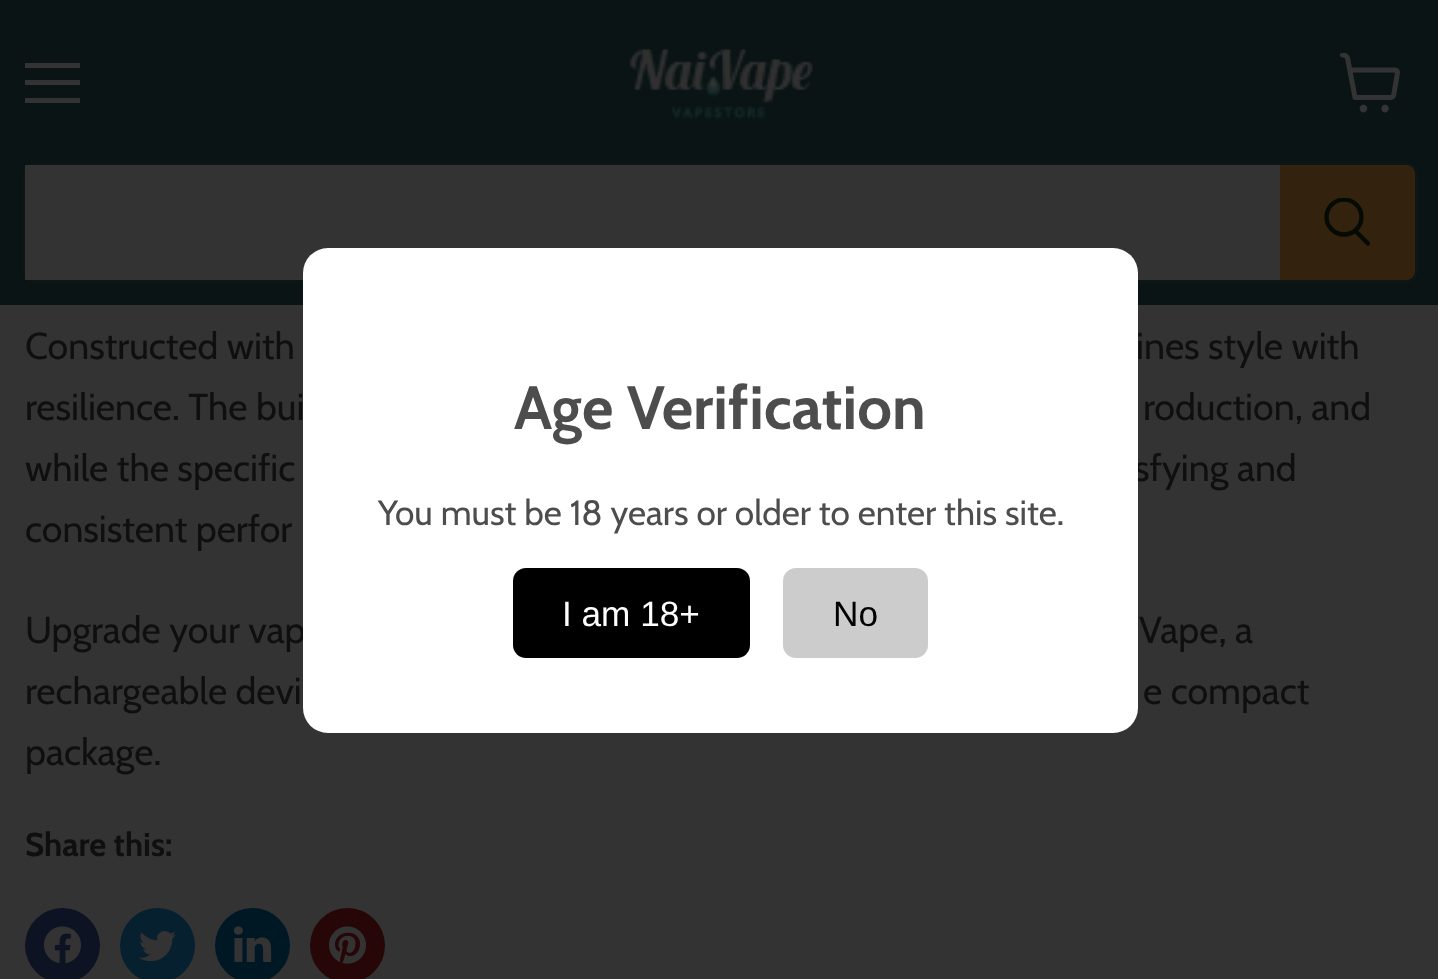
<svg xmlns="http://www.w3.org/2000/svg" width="1438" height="979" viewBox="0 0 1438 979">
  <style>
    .t1 { font: 37.5px Cabin; fill: #0f0f0f; }
    .t2 { font: bold 33px Cabin; fill: #0f0f0f; }
    .t3 { font: bold 61px Cabin; fill: #4d4d4d; }
    .t4 { font: 35.2px Cabin; fill: #4d4d4d; }
    .t5 { font: 35.2px Liberation Sans; fill: #fff; }
    .t6 { font: 35.2px Liberation Sans; fill: #000; }
  </style>
  <defs>
    <clipPath id="clip1"><rect x="1323" y="198" width="50" height="52"/></clipPath>
  </defs>
  <rect width="100%" height="100%" fill="#333"/>
  <rect x="0" y="0" width="1438" height="305" fill="#0a1415"/>
  <image x="629" y="48" width="184" height="72" href="images/1.png"/>
  <rect x="24.5" y="164.5" width="1392" height="117" rx="8.5" fill="none" stroke="#1a1a1a33" stroke-width="3"/>
  <rect x="25" y="165" width="1255" height="115" fill="#333"/>
  <path d="M1281.5 166.5H1407C1410.5 166.5 1413.5 169.5 1413.5 173V272C1413.5 275.5 1410.5 278.5 1407 278.5H1281.5Z" fill="#33220d" stroke="#33220d" stroke-width="3"/>
  <path d="M1368 243.5L1356 231.5" fill="none" stroke="#050b02" stroke-width="4.3" stroke-linecap="round"/>
  <g clip-path="url(#clip1)">
    <circle cx="1344" cy="217" r="17.5" fill="none" stroke="#050b02" stroke-width="4.3"/>
  </g>
  <rect x="25" y="63" width="55" height="5" fill="#333"/>
  <rect x="25" y="80" width="55" height="5" fill="#333"/>
  <rect x="25" y="98" width="55" height="5" fill="#333"/>
  <image x="1340" y="53" width="60" height="60" href="images/2.png"/>
  <text x="25" y="359" class="t1">Constructed with</text>
  <text x="1136" y="359" class="t1">ines style with</text>
  <text x="25" y="420" class="t1">resilience. The bui</text>
  <text x="1143" y="420" class="t1">roduction, and</text>
  <text x="25" y="481" class="t1">while the specific</text>
  <text x="1134" y="481" class="t1">sfying and</text>
  <text x="25" y="542" class="t1">consistent perfor</text>
  <text x="25" y="643" class="t1">Upgrade your vap</text>
  <text x="1139" y="643" class="t1">Vape, a</text>
  <text x="25" y="704" class="t1">rechargeable devi</text>
  <text x="1143" y="704" class="t1">e compact</text>
  <text x="25" y="765" class="t1">package.</text>
  <text x="25" y="856" class="t2">Share this:</text>
  <circle cx="62.5" cy="945.5" r="37.5" fill="#0d1322"/>
  <image x="43" y="926" width="39" height="38" href="images/3.png"/>
  <circle cx="157.5" cy="945.5" r="37.5" fill="#062030"/>
  <image x="139" y="931" width="37" height="31" href="images/4.png"/>
  <circle cx="252.5" cy="945.5" r="37.5" fill="#001824"/>
  <image x="233" y="926" width="39" height="36" href="images/5.png"/>
  <circle cx="347.5" cy="945.5" r="37.5" fill="#260606"/>
  <image x="328" y="926" width="39" height="38" href="images/6.png"/>
  <rect x="303" y="248" width="835" height="485" rx="25" fill="#fff"/>
  <text x="514" y="429" class="t3">Age Verification</text>
  <text x="378" y="525" class="t4">You must be 18 years or older to enter this site.</text>
  <rect x="513" y="568" width="237" height="90" rx="13" fill="#000"/>
  <text x="562" y="626" class="t5">I am 18+</text>
  <rect x="783" y="568" width="145" height="90" rx="13" fill="#ccc"/>
  <text x="833" y="626" class="t6">No</text>
</svg>
